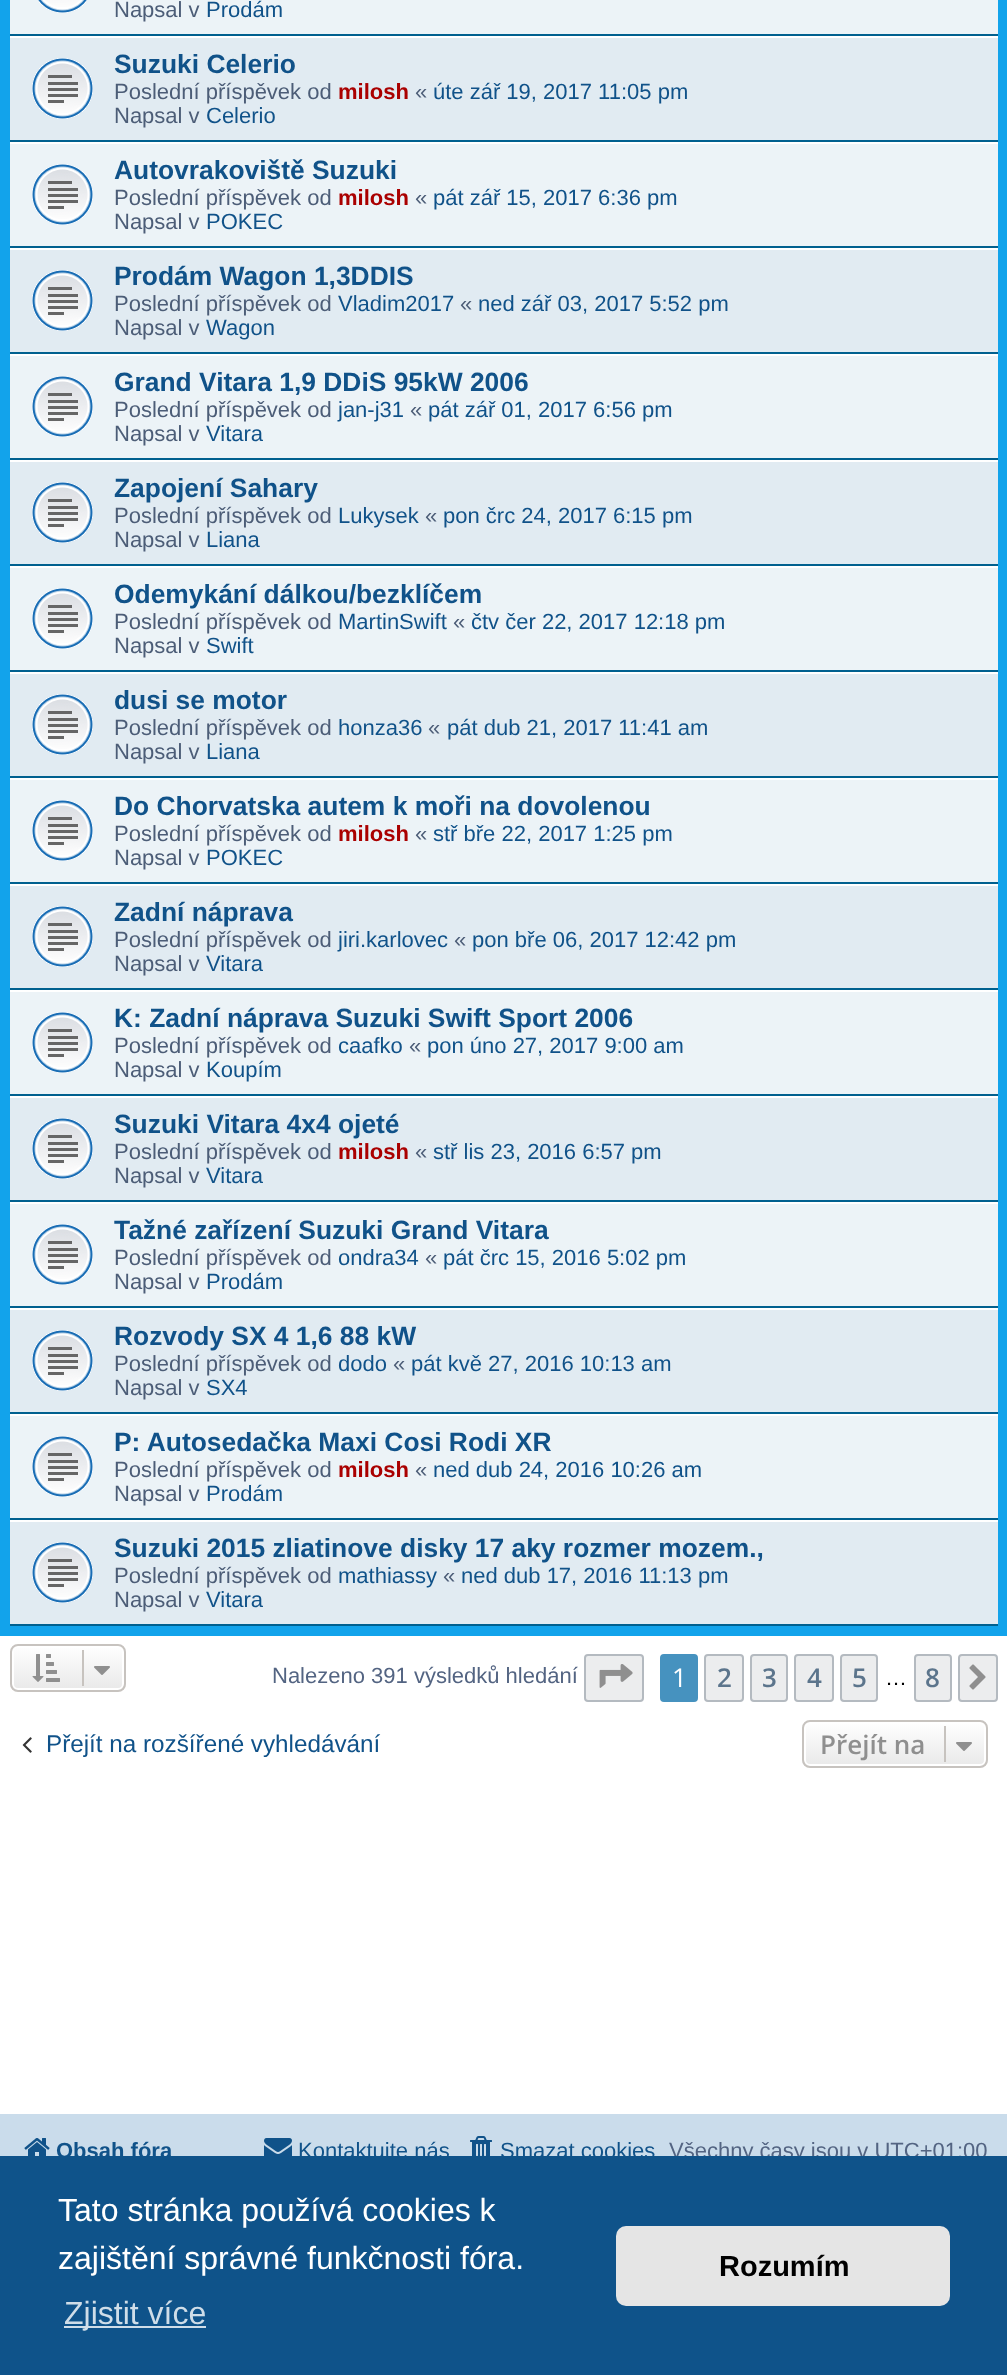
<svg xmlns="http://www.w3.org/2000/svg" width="1007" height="2375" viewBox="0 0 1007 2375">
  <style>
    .t1 { font: 22px Liberation Sans; fill: #4c5d77; }
    .t2 { font: 22px Liberation Sans; fill: #105289; }
    .t3 { font: bold 26.4px Liberation Sans; fill: #105289; }
    .t4 { font: bold 22px Liberation Sans; fill: #a00; }
    .t5 { font: 22px Liberation Sans; fill: #536482; }
    .t6 { font: 26px Open Sans; fill: #fff; }
    .t7 { font: 600 26px Open Sans; fill: #5c758c; }
    .t8 { font: 22px Liberation Sans; fill: #000; }
    .t9 { font: 24.25px Liberation Sans; fill: #105289; }
    .t10 { font: 600 26px Open Sans; fill: #8f8f8f; }
    .t11 { font: bold 22px Liberation Sans; fill: #105289; }
    .t12 { font: 32px Liberation Sans; fill: #fff; }
    .t13 { font: 32px Liberation Sans; fill: #cfdde8; }
    .t14 { font: bold 29px Liberation Sans; fill: #000; }
  </style>
  <defs>
    <clipPath id="clip1"><rect x="10" y="1644" width="116" height="48" rx="8"/></clipPath>
    <linearGradient id="g1" gradientUnits="userSpaceOnUse" x1="68" y1="1646" x2="68" y2="1690"><stop offset="0" stop-color="#fff"/><stop offset="1" stop-color="#e9e9e9"/></linearGradient>
    <clipPath id="clip2"><rect x="802" y="1720" width="186" height="48" rx="8"/></clipPath>
    <linearGradient id="g2" gradientUnits="userSpaceOnUse" x1="895" y1="1722" x2="895" y2="1766"><stop offset="0" stop-color="#fff"/><stop offset="1" stop-color="#e9e9e9"/></linearGradient>
  </defs>
  <rect width="100%" height="100%" fill="#fff"/>
  <rect x="0" y="0" width="1007" height="1636" fill="#12a3eb"/>
  <rect x="10" y="0" width="988" height="34" fill="#ecf3f7"/>
  <rect x="10" y="34" width="988" height="2" fill="#00608f"/>
  <image x="38" y="0" width="49" height="13" href="images/1.png"/>
  <text x="114" y="17" class="t1">Napsal v</text>
  <text x="206" y="17" class="t2">Prodám</text>
  <rect x="10" y="38" width="988" height="102" fill="#e1ebf2"/>
  <rect x="10" y="36" width="988" height="2" fill="#fff"/>
  <rect x="10" y="140" width="988" height="2" fill="#00608f"/>
  <image x="32" y="58" width="61" height="61" href="images/2.png"/>
  <text x="114" y="73" class="t3">Suzuki Celerio</text>
  <text x="114" y="99" class="t1">Poslední příspěvek od</text>
  <text x="338" y="99" class="t4">milosh</text>
  <text x="415" y="99" class="t1">«</text>
  <text x="433" y="99" class="t2">úte zář 19, 2017 11:05 pm</text>
  <text x="114" y="123" class="t1">Napsal v</text>
  <text x="206" y="123" class="t2">Celerio</text>
  <rect x="10" y="144" width="988" height="102" fill="#ecf3f7"/>
  <rect x="10" y="142" width="988" height="2" fill="#fff"/>
  <rect x="10" y="246" width="988" height="2" fill="#00608f"/>
  <image x="32" y="164" width="61" height="61" href="images/3.png"/>
  <text x="114" y="179" class="t3">Autovrakoviště Suzuki</text>
  <text x="114" y="205" class="t1">Poslední příspěvek od</text>
  <text x="338" y="205" class="t4">milosh</text>
  <text x="415" y="205" class="t1">«</text>
  <text x="433" y="205" class="t2">pát zář 15, 2017 6:36 pm</text>
  <text x="114" y="229" class="t1">Napsal v</text>
  <text x="206" y="229" class="t2">POKEC</text>
  <rect x="10" y="250" width="988" height="102" fill="#e1ebf2"/>
  <rect x="10" y="248" width="988" height="2" fill="#fff"/>
  <rect x="10" y="352" width="988" height="2" fill="#00608f"/>
  <image x="32" y="270" width="61" height="61" href="images/2.png"/>
  <text x="114" y="285" class="t3">Prodám Wagon 1,3DDIS</text>
  <text x="114" y="311" class="t1">Poslední příspěvek od</text>
  <text x="338" y="311" class="t2">Vladim2017</text>
  <text x="460" y="311" class="t1">«</text>
  <text x="478" y="311" class="t2">ned zář 03, 2017 5:52 pm</text>
  <text x="114" y="335" class="t1">Napsal v</text>
  <text x="206" y="335" class="t2">Wagon</text>
  <rect x="10" y="356" width="988" height="102" fill="#ecf3f7"/>
  <rect x="10" y="354" width="988" height="2" fill="#fff"/>
  <rect x="10" y="458" width="988" height="2" fill="#00608f"/>
  <image x="32" y="376" width="61" height="61" href="images/3.png"/>
  <text x="114" y="391" class="t3">Grand Vitara 1,9 DDiS 95kW 2006</text>
  <text x="114" y="417" class="t1">Poslední příspěvek od</text>
  <text x="338" y="417" class="t2">jan-j31</text>
  <text x="410" y="417" class="t1">«</text>
  <text x="428" y="417" class="t2">pát zář 01, 2017 6:56 pm</text>
  <text x="114" y="441" class="t1">Napsal v</text>
  <text x="206" y="441" class="t2">Vitara</text>
  <rect x="10" y="462" width="988" height="102" fill="#e1ebf2"/>
  <rect x="10" y="460" width="988" height="2" fill="#fff"/>
  <rect x="10" y="564" width="988" height="2" fill="#00608f"/>
  <image x="32" y="482" width="61" height="61" href="images/2.png"/>
  <text x="114" y="497" class="t3">Zapojení Sahary</text>
  <text x="114" y="523" class="t1">Poslední příspěvek od</text>
  <text x="338" y="523" class="t2">Lukysek</text>
  <text x="425" y="523" class="t1">«</text>
  <text x="443" y="523" class="t2">pon črc 24, 2017 6:15 pm</text>
  <text x="114" y="547" class="t1">Napsal v</text>
  <text x="206" y="547" class="t2">Liana</text>
  <rect x="10" y="568" width="988" height="102" fill="#ecf3f7"/>
  <rect x="10" y="566" width="988" height="2" fill="#fff"/>
  <rect x="10" y="670" width="988" height="2" fill="#00608f"/>
  <image x="32" y="588" width="61" height="61" href="images/3.png"/>
  <text x="114" y="603" class="t3">Odemykání dálkou/bezklíčem</text>
  <text x="114" y="629" class="t1">Poslední příspěvek od</text>
  <text x="338" y="629" class="t2">MartinSwift</text>
  <text x="453" y="629" class="t1">«</text>
  <text x="471" y="629" class="t2">čtv čer 22, 2017 12:18 pm</text>
  <text x="114" y="653" class="t1">Napsal v</text>
  <text x="206" y="653" class="t2">Swift</text>
  <rect x="10" y="674" width="988" height="102" fill="#e1ebf2"/>
  <rect x="10" y="672" width="988" height="2" fill="#fff"/>
  <rect x="10" y="776" width="988" height="2" fill="#00608f"/>
  <image x="32" y="694" width="61" height="61" href="images/2.png"/>
  <text x="114" y="709" class="t3">dusi se motor</text>
  <text x="114" y="735" class="t1">Poslední příspěvek od</text>
  <text x="338" y="735" class="t2">honza36</text>
  <text x="428" y="735" class="t1">«</text>
  <text x="447" y="735" class="t2">pát dub 21, 2017 11:41 am</text>
  <text x="114" y="759" class="t1">Napsal v</text>
  <text x="206" y="759" class="t2">Liana</text>
  <rect x="10" y="780" width="988" height="102" fill="#ecf3f7"/>
  <rect x="10" y="778" width="988" height="2" fill="#fff"/>
  <rect x="10" y="882" width="988" height="2" fill="#00608f"/>
  <image x="32" y="800" width="61" height="61" href="images/3.png"/>
  <text x="114" y="815" class="t3">Do Chorvatska autem k moři na dovolenou</text>
  <text x="114" y="841" class="t1">Poslední příspěvek od</text>
  <text x="338" y="841" class="t4">milosh</text>
  <text x="415" y="841" class="t1">«</text>
  <text x="433" y="841" class="t2">stř bře 22, 2017 1:25 pm</text>
  <text x="114" y="865" class="t1">Napsal v</text>
  <text x="206" y="865" class="t2">POKEC</text>
  <rect x="10" y="886" width="988" height="102" fill="#e1ebf2"/>
  <rect x="10" y="884" width="988" height="2" fill="#fff"/>
  <rect x="10" y="988" width="988" height="2" fill="#00608f"/>
  <image x="32" y="906" width="61" height="61" href="images/2.png"/>
  <text x="114" y="921" class="t3">Zadní náprava</text>
  <text x="114" y="947" class="t1">Poslední příspěvek od</text>
  <text x="338" y="947" class="t2">jiri.karlovec</text>
  <text x="454" y="947" class="t1">«</text>
  <text x="472" y="947" class="t2">pon bře 06, 2017 12:42 pm</text>
  <text x="114" y="971" class="t1">Napsal v</text>
  <text x="206" y="971" class="t2">Vitara</text>
  <rect x="10" y="992" width="988" height="102" fill="#ecf3f7"/>
  <rect x="10" y="990" width="988" height="2" fill="#fff"/>
  <rect x="10" y="1094" width="988" height="2" fill="#00608f"/>
  <image x="32" y="1012" width="61" height="61" href="images/3.png"/>
  <text x="114" y="1027" class="t3">K: Zadní náprava Suzuki Swift Sport 2006</text>
  <text x="114" y="1053" class="t1">Poslední příspěvek od</text>
  <text x="338" y="1053" class="t2">caafko</text>
  <text x="409" y="1053" class="t1">«</text>
  <text x="427" y="1053" class="t2">pon úno 27, 2017 9:00 am</text>
  <text x="114" y="1077" class="t1">Napsal v</text>
  <text x="206" y="1077" class="t2">Koupím</text>
  <rect x="10" y="1098" width="988" height="102" fill="#e1ebf2"/>
  <rect x="10" y="1096" width="988" height="2" fill="#fff"/>
  <rect x="10" y="1200" width="988" height="2" fill="#00608f"/>
  <image x="32" y="1118" width="61" height="61" href="images/2.png"/>
  <text x="114" y="1133" class="t3">Suzuki Vitara 4x4 ojeté</text>
  <text x="114" y="1159" class="t1">Poslední příspěvek od</text>
  <text x="338" y="1159" class="t4">milosh</text>
  <text x="415" y="1159" class="t1">«</text>
  <text x="433" y="1159" class="t2">stř lis 23, 2016 6:57 pm</text>
  <text x="114" y="1183" class="t1">Napsal v</text>
  <text x="206" y="1183" class="t2">Vitara</text>
  <rect x="10" y="1204" width="988" height="102" fill="#ecf3f7"/>
  <rect x="10" y="1202" width="988" height="2" fill="#fff"/>
  <rect x="10" y="1306" width="988" height="2" fill="#00608f"/>
  <image x="32" y="1224" width="61" height="61" href="images/3.png"/>
  <text x="114" y="1239" class="t3">Tažné zařízení Suzuki Grand Vitara</text>
  <text x="114" y="1265" class="t1">Poslední příspěvek od</text>
  <text x="338" y="1265" class="t2">ondra34</text>
  <text x="425" y="1265" class="t1">«</text>
  <text x="443" y="1265" class="t2">pát črc 15, 2016 5:02 pm</text>
  <text x="114" y="1289" class="t1">Napsal v</text>
  <text x="206" y="1289" class="t2">Prodám</text>
  <rect x="10" y="1310" width="988" height="102" fill="#e1ebf2"/>
  <rect x="10" y="1308" width="988" height="2" fill="#fff"/>
  <rect x="10" y="1412" width="988" height="2" fill="#00608f"/>
  <image x="32" y="1330" width="61" height="61" href="images/2.png"/>
  <text x="114" y="1345" class="t3">Rozvody SX 4 1,6 88 kW</text>
  <text x="114" y="1371" class="t1">Poslední příspěvek od</text>
  <text x="338" y="1371" class="t2">dodo</text>
  <text x="393" y="1371" class="t1">«</text>
  <text x="411" y="1371" class="t2">pát kvě 27, 2016 10:13 am</text>
  <text x="114" y="1395" class="t1">Napsal v</text>
  <text x="206" y="1395" class="t2">SX4</text>
  <rect x="10" y="1416" width="988" height="102" fill="#ecf3f7"/>
  <rect x="10" y="1414" width="988" height="2" fill="#fff"/>
  <rect x="10" y="1518" width="988" height="2" fill="#00608f"/>
  <image x="32" y="1436" width="61" height="61" href="images/3.png"/>
  <text x="114" y="1451" class="t3">P: Autosedačka Maxi Cosi Rodi XR</text>
  <text x="114" y="1477" class="t1">Poslední příspěvek od</text>
  <text x="338" y="1477" class="t4">milosh</text>
  <text x="415" y="1477" class="t1">«</text>
  <text x="433" y="1477" class="t2">ned dub 24, 2016 10:26 am</text>
  <text x="114" y="1501" class="t1">Napsal v</text>
  <text x="206" y="1501" class="t2">Prodám</text>
  <rect x="10" y="1522" width="988" height="102" fill="#e1ebf2"/>
  <rect x="10" y="1520" width="988" height="2" fill="#fff"/>
  <rect x="10" y="1624" width="988" height="2" fill="#00608f"/>
  <image x="32" y="1542" width="61" height="61" href="images/2.png"/>
  <text x="114" y="1557" class="t3">Suzuki 2015 zliatinove disky 17 aky rozmer mozem.,</text>
  <text x="114" y="1583" class="t1">Poslední příspěvek od</text>
  <text x="338" y="1583" class="t2">mathiassy</text>
  <text x="443" y="1583" class="t1">«</text>
  <text x="461" y="1583" class="t2">ned dub 17, 2016 11:13 pm</text>
  <text x="114" y="1607" class="t1">Napsal v</text>
  <text x="206" y="1607" class="t2">Vitara</text>
  <g clip-path="url(#clip1)">
    <rect x="10" y="1646" width="116" height="44" fill="url(#g1)"/>
  </g>
  <rect x="13" y="1647" width="110" height="42" rx="5" fill="none" stroke="#fff" stroke-width="2"/>
  <rect x="11" y="1645" width="114" height="46" rx="7" fill="none" stroke="#c7c3bf" stroke-width="2"/>
  <image x="32" y="1654" width="28" height="28" href="images/4.png"/>
  <rect x="82" y="1650" width="2" height="36" fill="#c7c3bf"/>
  <image x="94" y="1666" width="16" height="9" href="images/5.png"/>
  <text x="272" y="1683" class="t5">Nalezeno 391 výsledků hledání</text>
  <rect x="585" y="1655" width="58" height="46" rx="3" fill="#ecedee" stroke="#b4bac0" stroke-width="2"/>
  <image x="599" y="1664" width="34" height="24" href="images/6.png"/>
  <rect x="661" y="1655" width="36" height="46" rx="3" fill="#4692bf" stroke="#4692bf" stroke-width="2"/>
  <text x="672" y="1687" class="t6">1</text>
  <rect x="705" y="1655" width="38" height="46" rx="3" fill="#ecedee" stroke="#b4bac0" stroke-width="2"/>
  <text x="717" y="1687" class="t7">2</text>
  <rect x="751" y="1655" width="36" height="46" rx="3" fill="#ecedee" stroke="#b4bac0" stroke-width="2"/>
  <text x="762" y="1687" class="t7">3</text>
  <rect x="795" y="1655" width="38" height="46" rx="3" fill="#ecedee" stroke="#b4bac0" stroke-width="2"/>
  <text x="807" y="1687" class="t7">4</text>
  <rect x="841" y="1655" width="36" height="46" rx="3" fill="#ecedee" stroke="#b4bac0" stroke-width="2"/>
  <text x="852" y="1687" class="t7">5</text>
  <text x="885" y="1685" class="t8">…</text>
  <rect x="915" y="1655" width="36" height="46" rx="3" fill="#ecedee" stroke="#b4bac0" stroke-width="2"/>
  <text x="925" y="1687" class="t7">8</text>
  <rect x="959" y="1655" width="38" height="46" rx="3" fill="#ecedee" stroke="#b4bac0" stroke-width="2"/>
  <image x="969" y="1664" width="17" height="26" href="images/7.png"/>
  <image x="22" y="1737" width="10" height="16" href="images/8.png"/>
  <text x="46" y="1752" class="t9">Přejít na rozšířené vyhledávání</text>
  <g clip-path="url(#clip2)">
    <rect x="802" y="1722" width="186" height="44" fill="url(#g2)"/>
  </g>
  <rect x="805" y="1723" width="180" height="42" rx="5" fill="none" stroke="#fff" stroke-width="2"/>
  <rect x="803" y="1721" width="184" height="46" rx="7" fill="none" stroke="#c7c3bf" stroke-width="2"/>
  <text x="820" y="1754" class="t10">Přejít na</text>
  <rect x="944" y="1726" width="2" height="36" fill="#c7c3bf"/>
  <image x="956" y="1742" width="16" height="9" href="images/5.png"/>
  <rect x="0" y="2114" width="1007" height="42" fill="#cadceb"/>
  <image x="24" y="2138" width="26" height="18" href="images/9.png"/>
  <text x="56" y="2158" class="t11">Obsah fóra</text>
  <image x="264" y="2138" width="28" height="18" href="images/10.png"/>
  <text x="298" y="2158" class="t2">Kontaktujte nás</text>
  <image x="470" y="2136" width="22" height="20" href="images/11.png"/>
  <text x="500" y="2158" class="t2">Smazat cookies</text>
  <text x="669" y="2158" class="t5">Všechny časy jsou v UTC+01:00</text>
  <rect x="0" y="2156" width="1007" height="219" fill="#0f538a"/>
  <text x="58" y="2221" class="t12">Tato stránka používá cookies k</text>
  <text x="58" y="2269" class="t12">zajištění správné funkčnosti fóra.</text>
  <rect x="64" y="2326" width="142" height="2" fill="#cfdde8"/>
  <text x="64" y="2324" class="t13">Zjistit více</text>
  <rect x="616" y="2226" width="334" height="80" rx="10" fill="#e5e5e5"/>
  <text x="719" y="2276" class="t14">Rozumím</text>
</svg>
